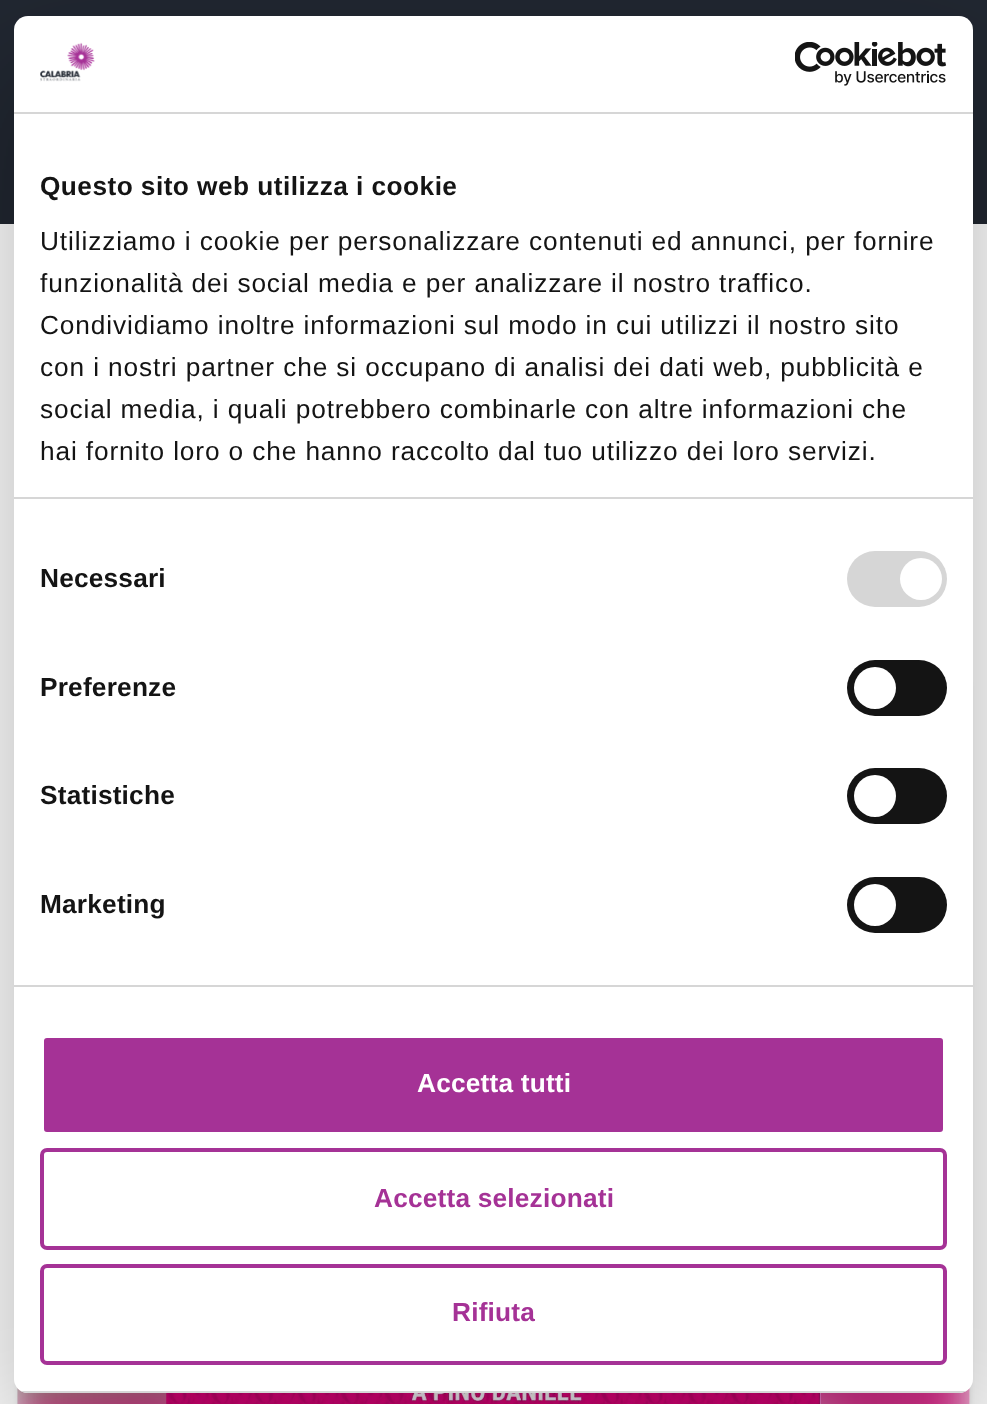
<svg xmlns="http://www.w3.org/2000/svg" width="987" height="1404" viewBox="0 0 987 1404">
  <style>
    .t1 { font: bold 26.25px Liberation Sans; letter-spacing: 0.45px; fill: #141414; }
    .t2 { font: 26.25px Liberation Sans; letter-spacing: 0.88px; fill: #141414; }
    .t3 { font: bold 26.25px Liberation Sans; letter-spacing: 0.2px; fill: #141414; }
    .t4 { font: bold 26.25px Liberation Sans; letter-spacing: 0.2px; fill: #fff; }
    .t5 { font: bold 26.25px Liberation Sans; letter-spacing: 0.2px; fill: #a53296; }
  </style>
  <defs>
    <clipPath id="clip1"><path d="M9 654H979V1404H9ZM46 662H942C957.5 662 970 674.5 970 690V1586C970 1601.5 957.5 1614 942 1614H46C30.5 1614 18 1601.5 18 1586V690C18 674.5 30.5 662 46 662Z" clip-rule="evenodd"/></clipPath>
    <clipPath id="clip2"><rect x="14" y="16" width="959" height="1377" rx="14"/></clipPath>
  </defs>
  <rect width="100%" height="100%" fill="#212731"/>
  <rect x="0" y="224" width="987" height="1180" fill="#fff"/>
  <g clip-path="url(#clip1)">
    <rect x="18" y="663" width="952" height="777" rx="28" fill="#0000001a" filter="blur(2.5px)"/>
  </g>
  <image x="17" y="1387" width="953" height="17" href="images/3.png"/>
  <image x="166" y="1393" width="655" height="11" href="images/4.png"/>
  <rect x="14" y="72" width="959" height="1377" rx="14" fill="#0000004d" filter="blur(59.5px)"/>
  <rect x="14" y="16" width="959" height="1377" rx="14" fill="#fff"/>
  <rect x="14" y="112" width="959" height="2" fill="#d6d6d6"/>
  <image x="40" y="42" width="55" height="40" href="images/1.png"/>
  <image x="795" y="42" width="152" height="44" href="images/2.png"/>
  <rect x="14" y="497" width="959" height="2" fill="#d6d6d6"/>
  <text x="40" y="195" class="t1">Questo sito web utilizza i cookie</text>
  <text x="40" y="250" class="t2">Utilizziamo i cookie per personalizzare contenuti ed annunci, per fornire</text>
  <text x="40" y="292" class="t2">funzionalità dei social media e per analizzare il nostro traffico.</text>
  <text x="40" y="334" class="t2">Condividiamo inoltre informazioni sul modo in cui utilizzi il nostro sito</text>
  <text x="40" y="376" class="t2">con i nostri partner che si occupano di analisi dei dati web, pubblicità e</text>
  <text x="40" y="418" class="t2">social media, i quali potrebbero combinarle con altre informazioni che</text>
  <text x="40" y="460" class="t2">hai fornito loro o che hanno raccolto dal tuo utilizzo dei loro servizi.</text>
  <rect x="14" y="985" width="959" height="2" fill="#d6d6d6"/>
  <text x="40" y="587" class="t3">Necessari</text>
  <rect x="847" y="551" width="100" height="56" rx="28" fill="#d6d6d6"/>
  <circle cx="921" cy="579" r="21" fill="#fff"/>
  <text x="40" y="696" class="t3">Preferenze</text>
  <rect x="847" y="660" width="100" height="56" rx="28" fill="#141414"/>
  <circle cx="875" cy="688" r="21" fill="#fff"/>
  <text x="40" y="804" class="t3">Statistiche</text>
  <rect x="847" y="768" width="100" height="56" rx="28" fill="#141414"/>
  <circle cx="875" cy="796" r="21" fill="#fff"/>
  <text x="40" y="913" class="t3">Marketing</text>
  <rect x="847" y="877" width="100" height="56" rx="28" fill="#141414"/>
  <circle cx="875" cy="905" r="21" fill="#fff"/>
  <g clip-path="url(#clip2)">
    <rect x="14" y="1391" width="959" height="2" fill="#d6d6d6"/>
  </g>
  <rect x="42" y="1036" width="903" height="98" rx="5" fill="#a53296" stroke="#fff" stroke-width="4"/>
  <text x="417" y="1092" class="t4">Accetta tutti</text>
  <rect x="42" y="1150" width="903" height="98" rx="5" fill="none" stroke="#a53296" stroke-width="4"/>
  <text x="374" y="1207" class="t5">Accetta selezionati</text>
  <rect x="42" y="1266" width="903" height="97" rx="5" fill="none" stroke="#a53296" stroke-width="4"/>
  <text x="452" y="1321" class="t5">Rifiuta</text>
</svg>
